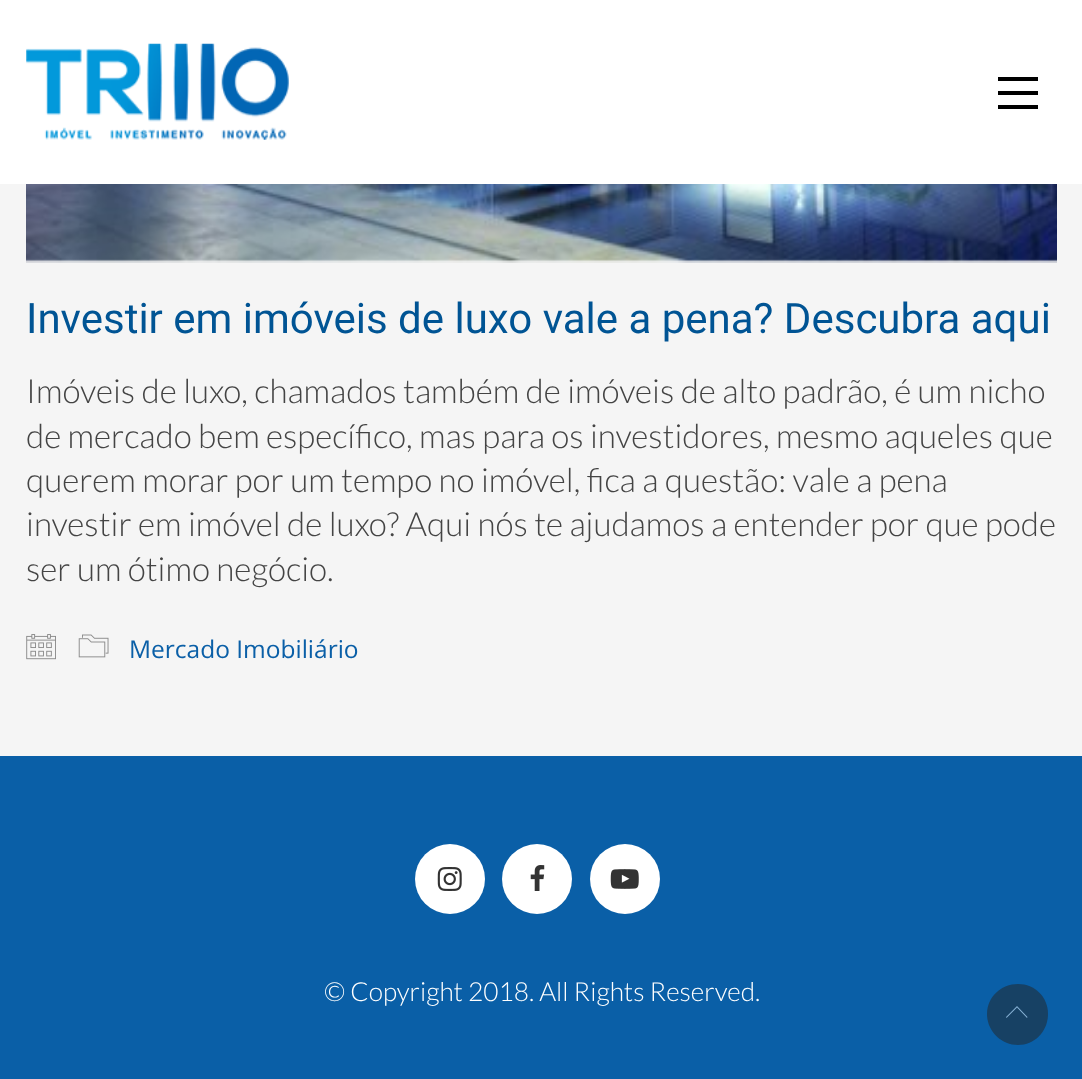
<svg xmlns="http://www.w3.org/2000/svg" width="1082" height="1079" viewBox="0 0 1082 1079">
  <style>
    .t1 { font: 42px Roboto; fill: #005494; }
    .t2 { font: 300 33.25px Lato; fill: #444; }
    .t3 { font: 24.5px Open Sans; fill: #0a5fa7; }
    .t4 { font: 300 26.25px Lato; fill: #fff; }
  </style>
  <rect width="100%" height="100%" fill="#f5f5f5"/>
  <rect x="0" y="0" width="1082" height="184" fill="#fff"/>
  <image x="26" y="43" width="263" height="97" href="images/1.png"/>
  <rect x="998" y="91" width="40" height="4" fill="#000"/>
  <rect x="998" y="77" width="40" height="4" fill="#000"/>
  <rect x="998" y="105" width="40" height="4" fill="#000"/>
  <image x="26" y="184" width="1031" height="79" href="images/2.png"/>
  <text x="26" y="333" class="t1">Investir em imóveis de luxo vale a pena? Descubra aqui</text>
  <text x="26" y="403" class="t2">Imóveis de luxo, chamados também de imóveis de alto padrão, é um nicho</text>
  <text x="26" y="448" class="t2">de mercado bem específico, mas para os investidores, mesmo aqueles que</text>
  <text x="26" y="492" class="t2">querem morar por um tempo no imóvel, fica a questão: vale a pena</text>
  <text x="26" y="536" class="t2">investir em imóvel de luxo? Aqui nós te ajudamos a entender por que pode</text>
  <text x="26" y="581" class="t2">ser um ótimo negócio.</text>
  <image x="26" y="634" width="30" height="26" href="images/3.png"/>
  <image x="78" y="634" width="31" height="24" href="images/4.png"/>
  <text x="129" y="658" class="t3">Mercado Imobiliário</text>
  <rect x="0" y="756" width="1082" height="323" fill="#0a5fa7"/>
  <circle cx="450" cy="879" r="35" fill="#fff"/>
  <image x="437" y="867" width="25" height="24" href="images/5.png"/>
  <circle cx="537" cy="879" r="35" fill="#fff"/>
  <image x="530" y="865" width="15" height="26" href="images/6.png"/>
  <circle cx="625" cy="879" r="35" fill="#fff"/>
  <image x="610" y="869" width="29" height="20" href="images/7.png"/>
  <text x="324" y="1001" class="t4">© Copyright 2018. All Rights Reserved.</text>
  <path d="M1018 1045C1001 1045 987 1031 987 1014C987 997 1001 984 1018 984C1035 984 1048 997 1048 1014C1048 1031 1035 1045 1018 1045Z" fill="#174164"/>
  <path d="M1017 1006L1027.5 1017L1027 1018L1017 1007.5L1006.5 1018L1006 1017Z" fill="#85afd3"/>
</svg>
